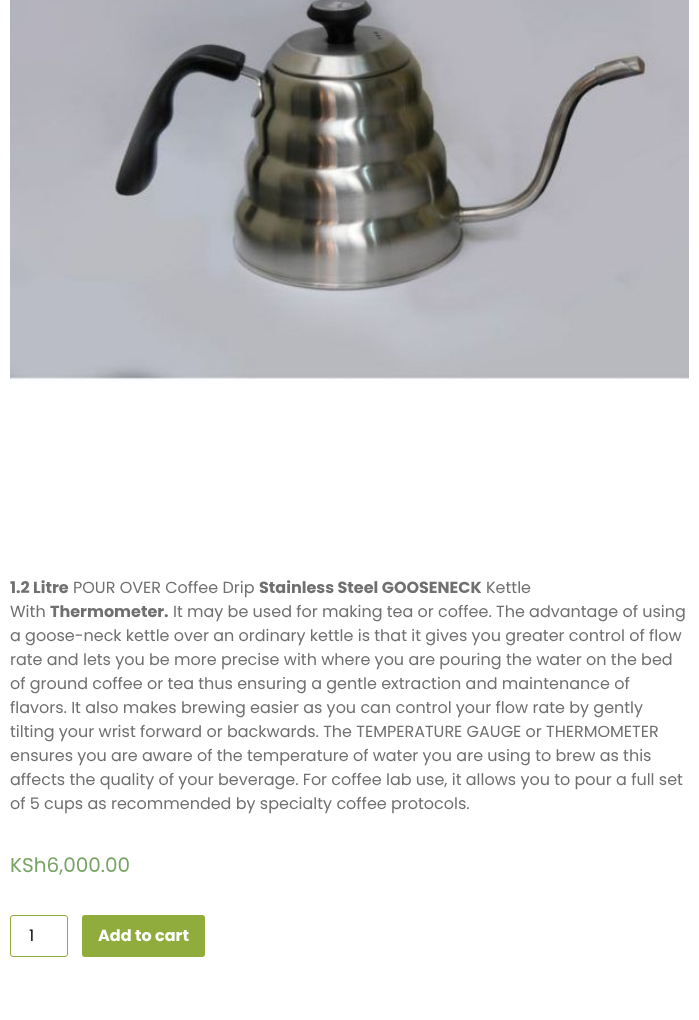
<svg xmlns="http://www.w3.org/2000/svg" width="699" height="1020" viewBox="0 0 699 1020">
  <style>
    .t1 { font: bold 16px Poppins; fill: #707070; }
    .t2 { font: 16px Poppins; fill: #707070; }
    .t3 { font: 20px Poppins; fill: #77a464; }
    .t4 { font: 16px Poppins; fill: #000; }
    .t5 { font: bold 16px Poppins; fill: #fff; }
  </style>
  <rect width="100%" height="100%" fill="#fff"/>
  <image x="10" y="0" width="679" height="381" href="images/1.png"/>
  <text x="10" y="593" class="t1">1.2 Litre</text>
  <text x="73" y="593" class="t2">POUR OVER Coffee Drip</text>
  <text x="259" y="593" class="t1">Stainless Steel GOOSENECK</text>
  <text x="486" y="593" class="t2">Kettle</text>
  <text x="10" y="617" class="t2">With</text>
  <text x="50" y="617" class="t1">Thermometer.</text>
  <text x="173" y="617" class="t2">It may be used for making tea or coffee. The advantage of using</text>
  <text x="10" y="641" class="t2">a goose-neck kettle over an ordinary kettle is that it gives you greater control of flow</text>
  <text x="10" y="665" class="t2">rate and lets you be more precise with where you are pouring the water on the bed</text>
  <text x="10" y="689" class="t2">of ground coffee or tea thus ensuring a gentle extraction and maintenance of</text>
  <text x="10" y="713" class="t2">flavors. It also makes brewing easier as you can control your flow rate by gently</text>
  <text x="10" y="737" class="t2">tilting your wrist forward or backwards. The TEMPERATURE GAUGE or THERMOMETER</text>
  <text x="10" y="761" class="t2">ensures you are aware of the temperature of water you are using to brew as this</text>
  <text x="10" y="785" class="t2">affects the quality of your beverage. For coffee lab use, it allows you to pour a full set</text>
  <text x="10" y="809" class="t2">of 5 cups as recommended by specialty coffee protocols.</text>
  <text x="10" y="872" class="t3">KSh6,000.00</text>
  <rect x="10.5" y="915.5" width="57" height="41" rx="2.5" fill="none" stroke="#8fac3d"/>
  <text x="29" y="941" class="t4">1</text>
  <rect x="82" y="915" width="123" height="42" rx="3" fill="#8fac3d"/>
  <text x="98" y="941" class="t5">Add to cart</text>
</svg>
